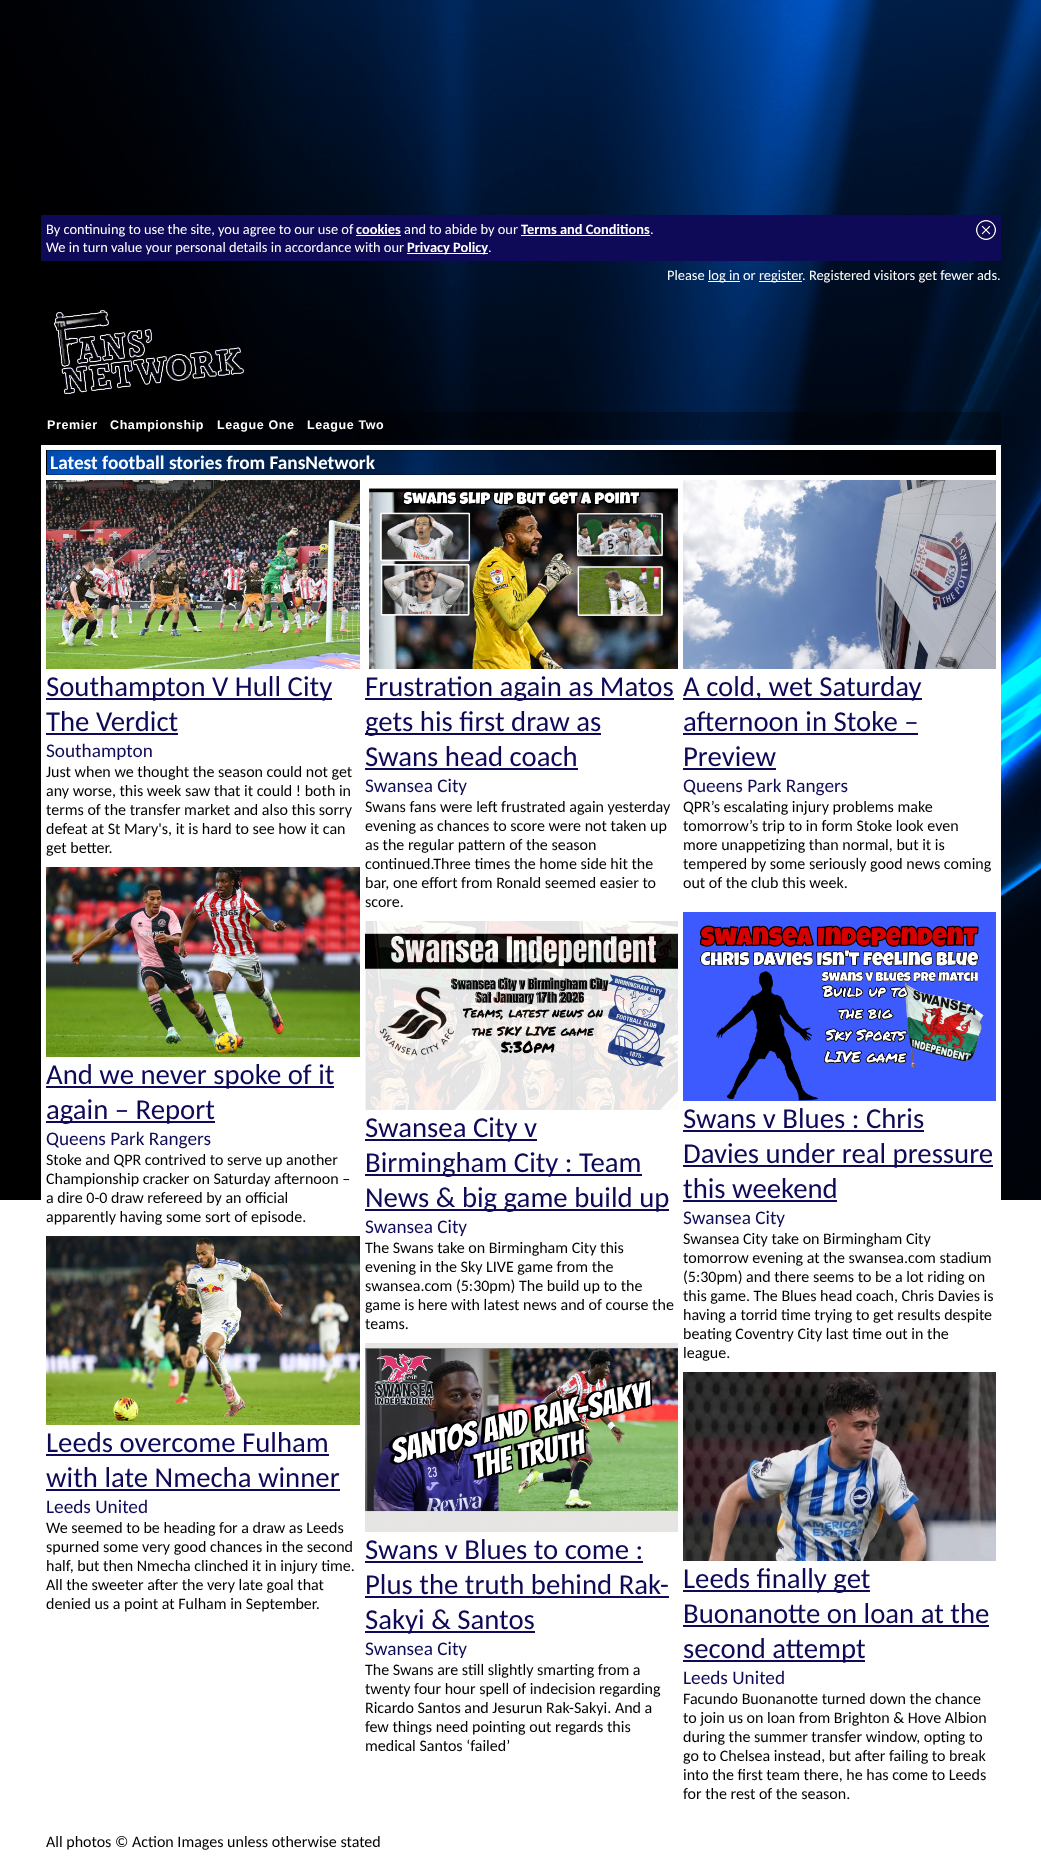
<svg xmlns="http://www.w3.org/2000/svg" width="1041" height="1859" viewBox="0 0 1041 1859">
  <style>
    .t1 { font: 14.4px Carlito; fill: #fff; }
    .t2 { font: bold 14.4px Carlito; fill: #fff; }
    .t3 { font: bold 12.5px Liberation Sans; letter-spacing: 0.6px; fill: #fff; }
    .t4 { font: bold 19.25px Carlito; fill: #fff; }
    .t5 { font: 28.75px Carlito; fill: #0f0a57; }
    .t6 { font: 19.25px Carlito; fill: #0f0a57; }
    .t7 { font: 16px Carlito; fill: #000; }
  </style>
  <rect width="100%" height="100%" fill="#fff"/>
  <image x="0" y="0" width="1041" height="1200" href="images/1.png"/>
  <rect x="41" y="215" width="960" height="46" fill="#0f0a57"/>
  <text x="46" y="234" class="t1">By continuing to use the site, you agree to our use of</text>
  <text x="356" y="234" class="t2">cookies</text>
  <rect x="356" y="235" width="45" height="1" fill="#fff"/>
  <text x="404" y="234" class="t1">and to abide by our</text>
  <text x="521" y="234" class="t2">Terms and Conditions</text>
  <rect x="521" y="235" width="129" height="1" fill="#fff"/>
  <text x="650" y="234" class="t1">.</text>
  <image x="976" y="220" width="20" height="20" href="images/2.png"/>
  <text x="46" y="252" class="t1">We in turn value your personal details in accordance with our</text>
  <rect x="407" y="253" width="81" height="1" fill="#fff"/>
  <text x="407" y="252" class="t2">Privacy Policy</text>
  <text x="488" y="252" class="t1">.</text>
  <text x="667" y="280" class="t1">Please</text>
  <rect x="708" y="281" width="32" height="1" fill="#fff"/>
  <text x="708" y="280" class="t1">log in or</text>
  <rect x="759" y="281" width="43" height="1" fill="#fff"/>
  <text x="759" y="280" class="t1">register</text>
  <text x="802" y="280" class="t1">. Registered visitors get fewer ads.</text>
  <image x="53" y="310" width="191" height="84" href="images/3.png"/>
  <rect x="358" y="412" width="643" height="28" fill="#0000004d"/>
  <text x="47" y="429" class="t3">Premier</text>
  <text x="110" y="429" class="t3">Championship</text>
  <text x="217" y="429" class="t3">League One</text>
  <text x="307" y="429" class="t3">League Two</text>
  <rect x="41" y="445" width="960" height="755" fill="#fff"/>
  <rect x="46" y="450" width="950" height="25" fill="#000"/>
  <image x="47" y="450" width="849" height="25" href="images/4.png"/>
  <rect x="46.5" y="450.5" width="949" height="24" fill="none" stroke="#0000004d"/>
  <text x="50" y="469" class="t4">Latest football stories from FansNetwork</text>
  <image x="46" y="480" width="314" height="189" href="images/5.png"/>
  <rect x="46" y="698" width="286" height="2" fill="#0f0a57"/>
  <text x="46" y="696" class="t5">Southampton V Hull City</text>
  <text x="46" y="731" class="t5">The Verdict</text>
  <rect x="46" y="733" width="132" height="2" fill="#0f0a57"/>
  <text x="46" y="757" class="t6">Southampton</text>
  <text x="46" y="777" class="t7">Just when we thought the season could not get</text>
  <text x="46" y="796" class="t7">any worse, this week saw that it could ! both in</text>
  <text x="46" y="815" class="t7">terms of the transfer market and also this sorry</text>
  <text x="46" y="834" class="t7">defeat at St Mary's, it is hard to see how it can</text>
  <text x="46" y="853" class="t7">get better.</text>
  <image x="46" y="867" width="314" height="190" href="images/6.png"/>
  <rect x="46" y="1086" width="288" height="2" fill="#0f0a57"/>
  <text x="46" y="1084" class="t5">And we never spoke of it</text>
  <rect x="46" y="1121" width="169" height="2" fill="#0f0a57"/>
  <text x="46" y="1119" class="t5">again – Report</text>
  <text x="46" y="1145" class="t6">Queens Park Rangers</text>
  <text x="46" y="1165" class="t7">Stoke and QPR contrived to serve up another</text>
  <text x="46" y="1184" class="t7">Championship cracker on Saturday afternoon –</text>
  <text x="46" y="1203" class="t7">a dire 0-0 draw refereed by an official</text>
  <text x="46" y="1222" class="t7">apparently having some sort of episode.</text>
  <image x="46" y="1236" width="314" height="189" href="images/7.png"/>
  <text x="46" y="1452" class="t5">Leeds overcome Fulham</text>
  <rect x="46" y="1454" width="283" height="2" fill="#0f0a57"/>
  <text x="46" y="1487" class="t5">with late Nmecha winner</text>
  <rect x="46" y="1489" width="294" height="2" fill="#0f0a57"/>
  <text x="46" y="1513" class="t6">Leeds United</text>
  <text x="46" y="1533" class="t7">We seemed to be heading for a draw as Leeds</text>
  <text x="46" y="1552" class="t7">spurned some very good chances in the second</text>
  <text x="46" y="1571" class="t7">half, but then Nmecha clinched it in injury time.</text>
  <text x="46" y="1590" class="t7">All the sweeter after the very late goal that</text>
  <text x="46" y="1609" class="t7">denied us a point at Fulham in September.</text>
  <image x="369" y="488" width="309" height="181" href="images/8.png"/>
  <rect x="365" y="698" width="309" height="2" fill="#0f0a57"/>
  <text x="365" y="696" class="t5">Frustration again as Matos</text>
  <rect x="365" y="733" width="236" height="2" fill="#0f0a57"/>
  <text x="365" y="731" class="t5">gets his first draw as</text>
  <text x="365" y="766" class="t5">Swans head coach</text>
  <rect x="365" y="768" width="213" height="2" fill="#0f0a57"/>
  <text x="365" y="792" class="t6">Swansea City</text>
  <text x="365" y="812" class="t7">Swans fans were left frustrated again yesterday</text>
  <text x="365" y="831" class="t7">evening as chances to score were not taken up</text>
  <text x="365" y="850" class="t7">as the regular pattern of the season</text>
  <text x="365" y="869" class="t7">continued.Three times the home side hit the</text>
  <text x="365" y="888" class="t7">bar, one effort from Ronald seemed easier to</text>
  <text x="365" y="907" class="t7">score.</text>
  <image x="365" y="921" width="313" height="189" href="images/9.png"/>
  <rect x="365" y="1139" width="172" height="2" fill="#0f0a57"/>
  <text x="365" y="1137" class="t5">Swansea City v</text>
  <rect x="365" y="1174" width="277" height="2" fill="#0f0a57"/>
  <text x="365" y="1172" class="t5">Birmingham City : Team</text>
  <rect x="365" y="1209" width="304" height="2" fill="#0f0a57"/>
  <text x="365" y="1207" class="t5">News &amp; big game build up</text>
  <text x="365" y="1233" class="t6">Swansea City</text>
  <text x="365" y="1253" class="t7">The Swans take on Birmingham City this</text>
  <text x="365" y="1272" class="t7">evening in the Sky LIVE game from the</text>
  <text x="365" y="1291" class="t7">swansea.com (5:30pm) The build up to the</text>
  <text x="365" y="1310" class="t7">game is here with latest news and of course the</text>
  <text x="365" y="1329" class="t7">teams.</text>
  <image x="365" y="1343" width="313" height="189" href="images/10.png"/>
  <text x="365" y="1559" class="t5">Swans v Blues to come :</text>
  <rect x="365" y="1561" width="278" height="2" fill="#0f0a57"/>
  <text x="365" y="1594" class="t5">Plus the truth behind Rak-</text>
  <rect x="365" y="1596" width="304" height="2" fill="#0f0a57"/>
  <rect x="365" y="1631" width="170" height="2" fill="#0f0a57"/>
  <text x="365" y="1629" class="t5">Sakyi &amp; Santos</text>
  <text x="365" y="1655" class="t6">Swansea City</text>
  <text x="365" y="1675" class="t7">The Swans are still slightly smarting from a</text>
  <text x="365" y="1694" class="t7">twenty four hour spell of indecision regarding</text>
  <text x="365" y="1713" class="t7">Ricardo Santos and Jesurun Rak-Sakyi. And a</text>
  <text x="365" y="1732" class="t7">few things need pointing out regards this</text>
  <text x="365" y="1751" class="t7">medical Santos ‘failed’</text>
  <image x="683" y="480" width="313" height="189" href="images/11.png"/>
  <rect x="683" y="698" width="239" height="2" fill="#0f0a57"/>
  <text x="683" y="696" class="t5">A cold, wet Saturday</text>
  <text x="683" y="731" class="t5">afternoon in Stoke –</text>
  <rect x="683" y="733" width="235" height="2" fill="#0f0a57"/>
  <text x="683" y="766" class="t5">Preview</text>
  <rect x="683" y="768" width="93" height="2" fill="#0f0a57"/>
  <text x="683" y="792" class="t6">Queens Park Rangers</text>
  <text x="683" y="812" class="t7">QPR’s escalating injury problems make</text>
  <text x="683" y="831" class="t7">tomorrow’s trip to in form Stoke look even</text>
  <text x="683" y="850" class="t7">more unappetizing than normal, but it is</text>
  <text x="683" y="869" class="t7">tempered by some seriously good news coming</text>
  <text x="683" y="888" class="t7">out of the club this week.</text>
  <image x="683" y="912" width="313" height="189" href="images/12.png"/>
  <text x="683" y="1128" class="t5">Swans v Blues : Chris</text>
  <rect x="683" y="1130" width="241" height="2" fill="#0f0a57"/>
  <rect x="683" y="1165" width="310" height="2" fill="#0f0a57"/>
  <text x="683" y="1163" class="t5">Davies under real pressure</text>
  <text x="683" y="1198" class="t5">this weekend</text>
  <rect x="683" y="1200" width="154" height="2" fill="#0f0a57"/>
  <text x="683" y="1224" class="t6">Swansea City</text>
  <text x="683" y="1244" class="t7">Swansea City take on Birmingham City</text>
  <text x="683" y="1263" class="t7">tomorrow evening at the swansea.com stadium</text>
  <text x="683" y="1282" class="t7">(5:30pm) and there seems to be a lot riding on</text>
  <text x="683" y="1301" class="t7">this game. The Blues head coach, Chris Davies is</text>
  <text x="683" y="1320" class="t7">having a torrid time trying to get results despite</text>
  <text x="683" y="1339" class="t7">beating Coventry City last time out in the</text>
  <text x="683" y="1358" class="t7">league.</text>
  <image x="683" y="1372" width="313" height="189" href="images/13.png"/>
  <rect x="683" y="1590" width="187" height="2" fill="#0f0a57"/>
  <text x="683" y="1588" class="t5">Leeds finally get</text>
  <text x="683" y="1623" class="t5">Buonanotte on loan at the</text>
  <rect x="683" y="1625" width="306" height="2" fill="#0f0a57"/>
  <rect x="683" y="1660" width="182" height="2" fill="#0f0a57"/>
  <text x="683" y="1658" class="t5">second attempt</text>
  <text x="683" y="1684" class="t6">Leeds United</text>
  <text x="683" y="1704" class="t7">Facundo Buonanotte turned down the chance</text>
  <text x="683" y="1723" class="t7">to join us on loan from Brighton &amp; Hove Albion</text>
  <text x="683" y="1742" class="t7">during the summer transfer window, opting to</text>
  <text x="683" y="1761" class="t7">go to Chelsea instead, but after failing to break</text>
  <text x="683" y="1780" class="t7">into the first team there, he has come to Leeds</text>
  <text x="683" y="1799" class="t7">for the rest of the season.</text>
  <text x="46" y="1847" class="t7">All photos © Action Images unless otherwise stated</text>
</svg>
